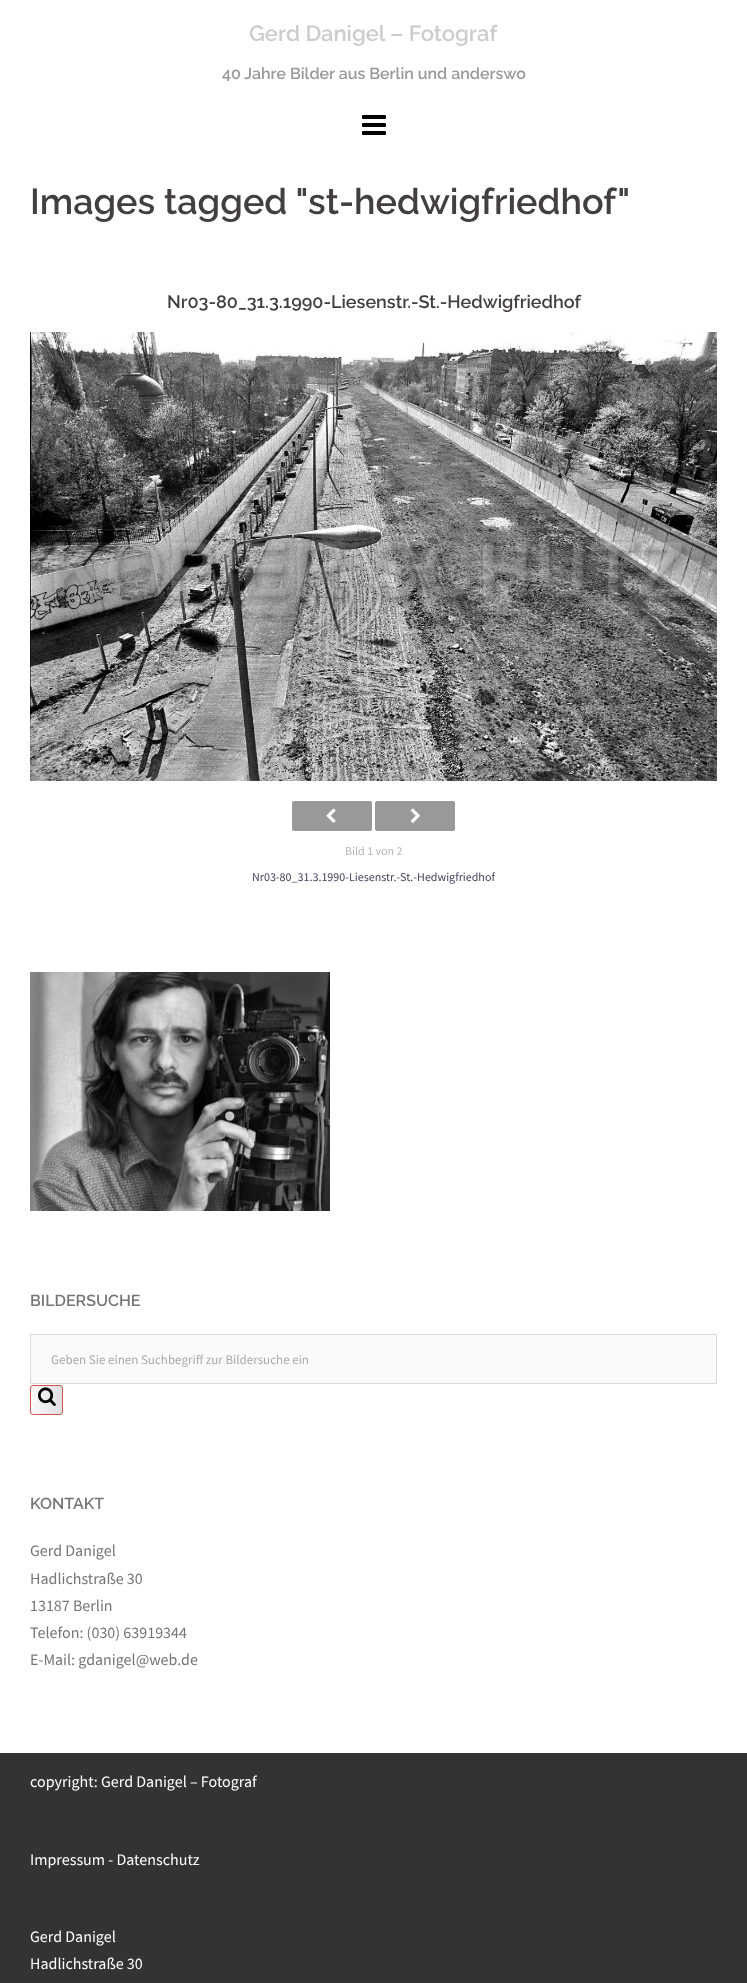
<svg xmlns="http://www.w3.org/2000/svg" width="747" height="1983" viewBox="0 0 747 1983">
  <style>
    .t1 { font: 600 22px Raleway; fill: #ccc; }
    .t2 { font: 600 16px Raleway; fill: #999; }
    .t3 { font: 600 36px Raleway; fill: #443f3f; }
    .t4 { font: 600 18px Raleway; fill: #443f3f; }
    .t5 { font: 12px Source Sans Pro; fill: #b6b6b6; }
    .t6 { font: 12px Source Sans Pro; fill: #47425d; }
    .t7 { font: 600 16px Raleway; fill: #767676; }
    .t8 { font: 13px Source Sans Pro; fill: #aaa; }
    .t9 { font: 16px Source Sans Pro; fill: #767676; }
    .t10 { font: 16px Source Sans Pro; fill: #fefefe; }
  </style>
  <defs>
    <clipPath id="clip1"><rect x="30" y="1385" width="33" height="30" rx="3"/></clipPath>
    <linearGradient id="g1" gradientUnits="userSpaceOnUse" x1="62" y1="1400" x2="31" y2="1400"><stop offset="0" stop-color="#e0e0e0"/><stop offset="1" stop-color="#fafafa"/></linearGradient>
  </defs>
  <rect width="100%" height="100%" fill="#fff"/>
  <text x="249" y="41" class="t1">Gerd Danigel – Fotograf</text>
  <text x="222" y="79" class="t2">40 Jahre Bilder aus Berlin und anderswo</text>
  <image x="362" y="115" width="24" height="20" href="images/1.png"/>
  <text x="30" y="214" class="t3">Images tagged "st-hedwigfriedhof"</text>
  <text x="167" y="308" class="t4">Nr03-80_31.3.1990-Liesenstr.-St.-Hedwigfriedhof</text>
  <image x="30" y="332" width="687" height="449" href="images/2.png"/>
  <rect x="292" y="801" width="80" height="30" rx="2" fill="#999"/>
  <image x="326" y="808" width="10" height="15" href="images/3.png"/>
  <rect x="375" y="801" width="80" height="30" rx="2" fill="#999"/>
  <image x="410" y="808" width="10" height="15" href="images/4.png"/>
  <text x="345" y="855" class="t5">Bild 1 von 2</text>
  <text x="252" y="881" class="t6">Nr03-80_31.3.1990-Liesenstr.-St.-Hedwigfriedhof</text>
  <image x="30" y="972" width="300" height="239" href="images/5.png"/>
  <text x="30" y="1306" class="t7">BILDERSUCHE</text>
  <rect x="30.5" y="1334.5" width="686" height="49" fill="#fafafa" stroke="#dbdbdb"/>
  <text x="51" y="1364" class="t8">Geben Sie einen Suchbegriff zur Bildersuche ein</text>
  <g clip-path="url(#clip1)">
    <rect x="31" y="1385" width="31" height="30" fill="url(#g1)"/>
  </g>
  <rect x="30.5" y="1385.5" width="32" height="29" rx="2.5" fill="none" stroke="#d65050"/>
  <image x="38" y="1387" width="18" height="19" href="images/6.png"/>
  <text x="30" y="1509" class="t7">KONTAKT</text>
  <text x="30" y="1556" class="t9">Gerd Danigel</text>
  <text x="30" y="1584" class="t9">Hadlichstraße 30</text>
  <text x="30" y="1611" class="t9">13187 Berlin</text>
  <text x="30" y="1638" class="t9">Telefon: (030) 63919344</text>
  <text x="30" y="1665" class="t9">E-Mail: gdanigel@web.de</text>
  <rect x="0" y="1753" width="747" height="230" fill="#333"/>
  <text x="30" y="1787" class="t10">copyright: Gerd Danigel – Fotograf</text>
  <text x="30" y="1865" class="t10">Impressum - Datenschutz</text>
  <text x="30" y="1942" class="t10">Gerd Danigel</text>
  <text x="30" y="1969" class="t10">Hadlichstraße 30</text>
</svg>
